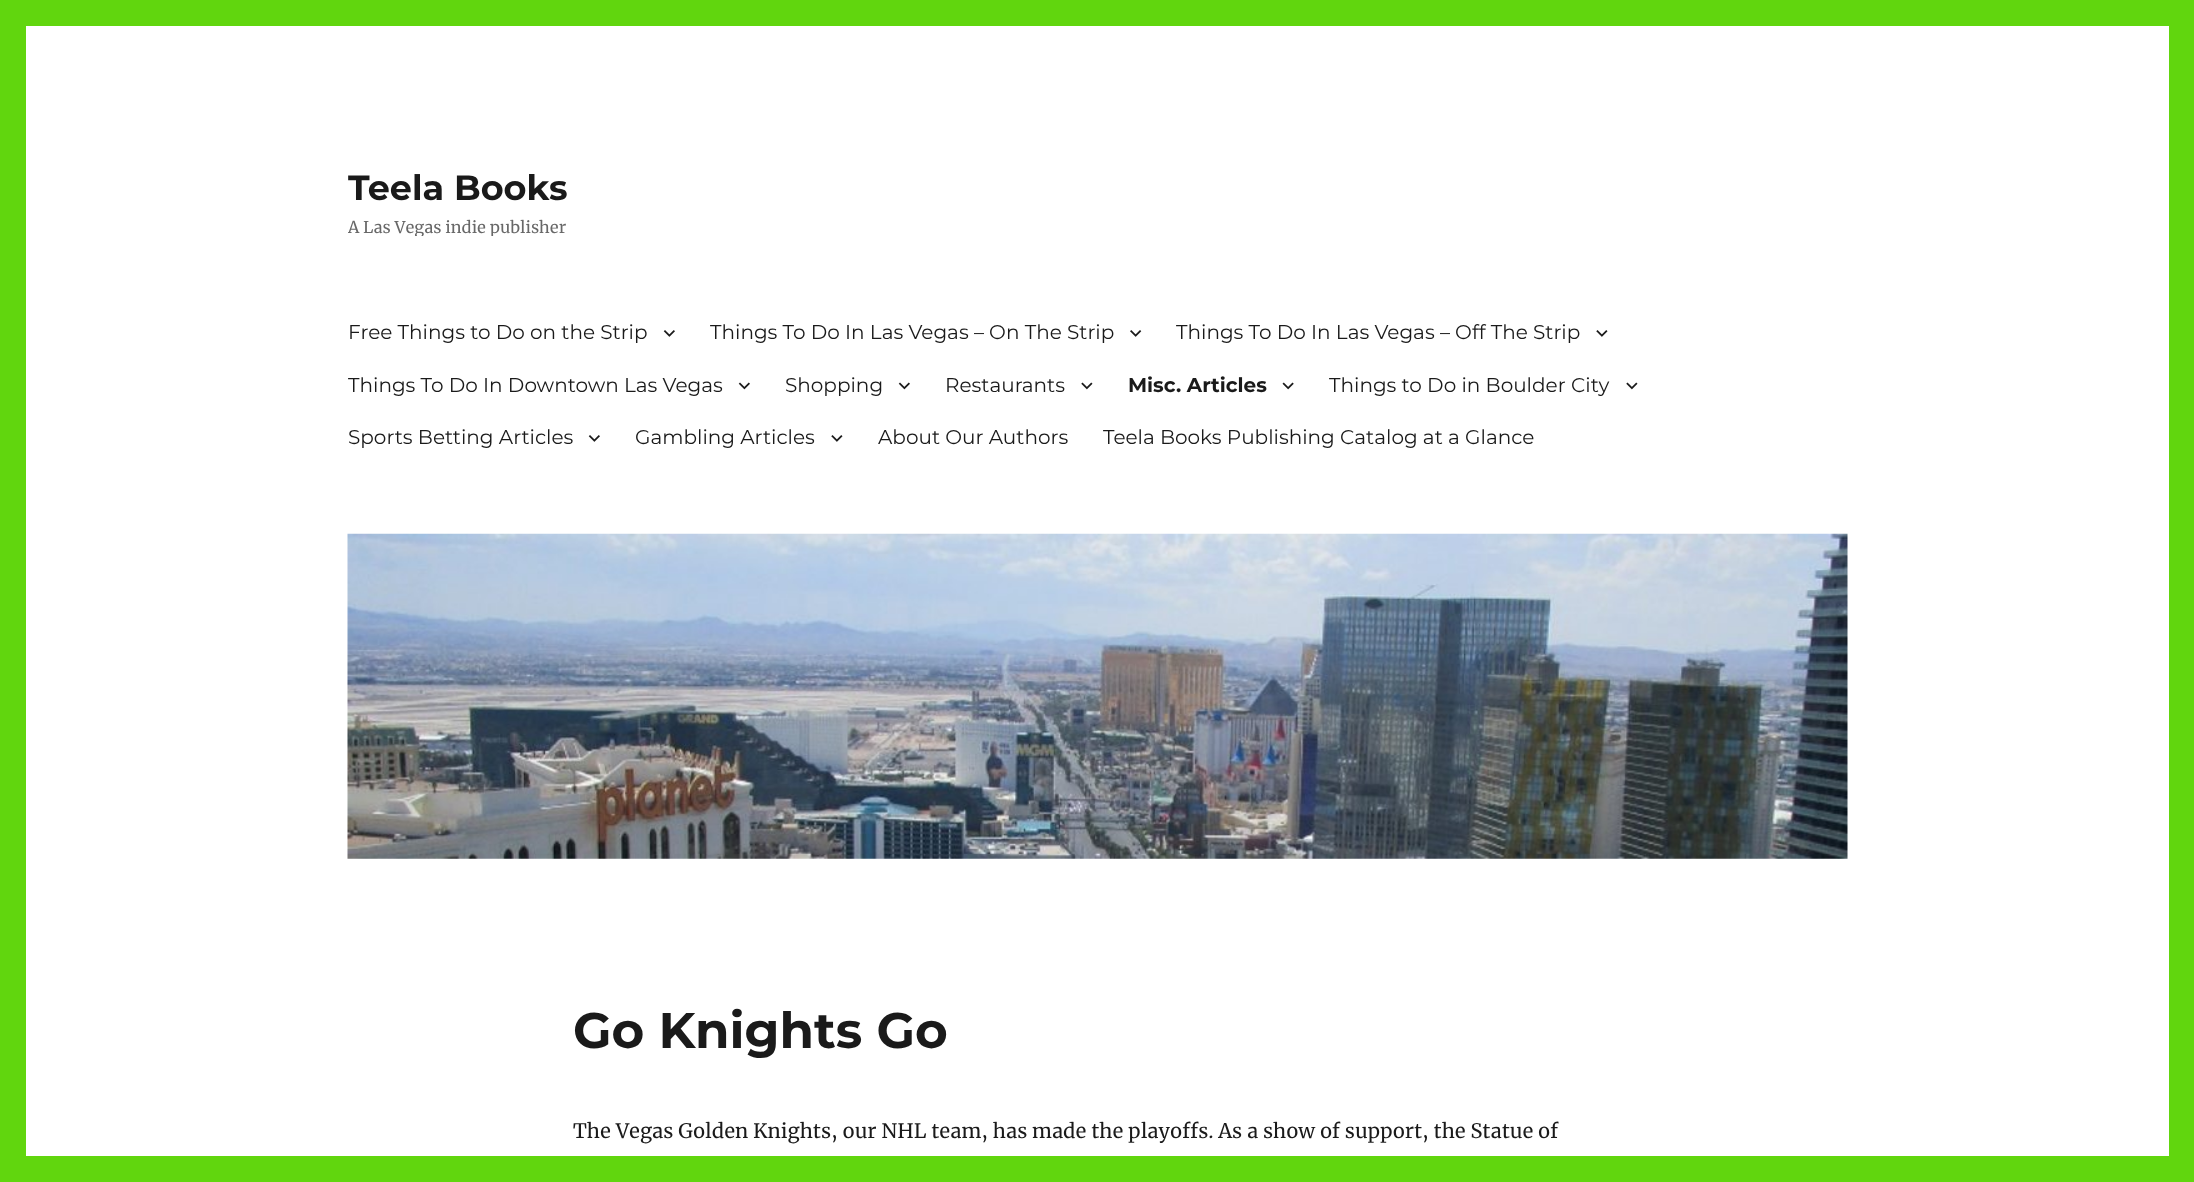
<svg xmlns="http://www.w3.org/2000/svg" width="2194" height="1182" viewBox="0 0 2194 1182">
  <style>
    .t1 { font: 100 35px Montserrat; fill: #1a1a1a; }
    .t2 { font: 16.25px Merriweather; fill: #686868; }
    .t3 { font: 100 20px 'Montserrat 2'; fill: #1a1a1a; }
    .t4 { font: 100 20px Montserrat; fill: #1a1a1a; }
    .t5 { font: 100 50px Montserrat; fill: #1a1a1a; }
    .t6 { font: 20px Merriweather; fill: #1a1a1a; }
  </style>
  <defs>
    <clipPath id="clip1"><rect x="348" y="166" width="220" height="70"/></clipPath>
  </defs>
  <rect width="100%" height="100%" fill="#61d60e"/>
  <rect x="26" y="26" width="2143" height="1130" fill="#fff"/>
  <g clip-path="url(#clip1)">
    <text x="348" y="200" class="t1">Teela Books</text>
    <text x="348" y="233" class="t2">A Las Vegas indie publisher</text>
  </g>
  <text x="348" y="339" class="t3">Free Things to Do on the Strip</text>
  <image x="663" y="330" width="12" height="7" href="images/1.png"/>
  <text x="710" y="339" class="t3">Things To Do In Las Vegas – On The Strip</text>
  <image x="1130" y="330" width="12" height="7" href="images/2.png"/>
  <text x="1176" y="339" class="t3">Things To Do In Las Vegas – Off The Strip</text>
  <image x="1596" y="330" width="12" height="7" href="images/3.png"/>
  <text x="348" y="392" class="t3">Things To Do In Downtown Las Vegas</text>
  <image x="738" y="382" width="12" height="8" href="images/4.png"/>
  <text x="785" y="392" class="t3">Shopping</text>
  <image x="898" y="382" width="12" height="8" href="images/4.png"/>
  <text x="945" y="392" class="t3">Restaurants</text>
  <image x="1081" y="382" width="12" height="8" href="images/5.png"/>
  <text x="1128" y="392" class="t4">Misc. Articles</text>
  <image x="1282" y="382" width="12" height="8" href="images/6.png"/>
  <text x="1329" y="392" class="t3">Things to Do in Boulder City</text>
  <image x="1626" y="382" width="12" height="8" href="images/5.png"/>
  <text x="348" y="444" class="t3">Sports Betting Articles</text>
  <image x="588" y="435" width="12" height="7" href="images/1.png"/>
  <text x="635" y="444" class="t3">Gambling Articles</text>
  <image x="831" y="435" width="12" height="7" href="images/3.png"/>
  <text x="878" y="444" class="t3">About Our Authors</text>
  <text x="1103" y="444" class="t3">Teela Books Publishing Catalog at a Glance</text>
  <image x="347" y="533" width="1501" height="326" href="images/7.png"/>
  <text x="573" y="1048" class="t5">Go Knights Go</text>
  <text x="573" y="1138" class="t6">The Vegas Golden Knights, our NHL team, has made the playoffs. As a show of support, the Statue of</text>
</svg>
